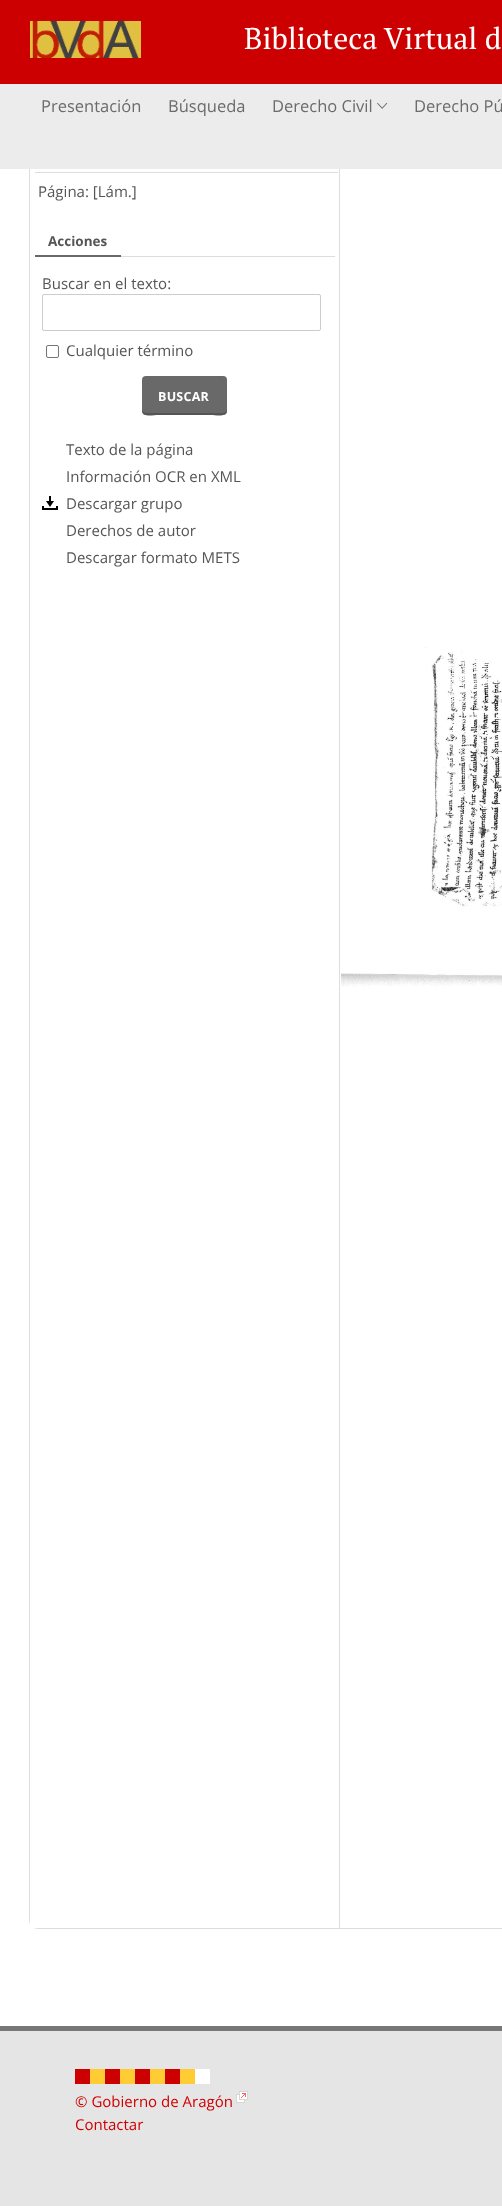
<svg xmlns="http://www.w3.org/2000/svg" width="502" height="2206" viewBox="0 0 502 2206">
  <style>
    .t1 { font: 30px PT Serif; fill: #fff; }
    .t2 { font: 16.5px Open Sans; fill: #6b6b6b; }
    .t3 { font: 15px Open Sans; fill: #555; }
    .t4 { font: bold 13.5px Open Sans; fill: #555; }
    .t5 { font: bold 12.5px Open Sans; letter-spacing: 0.25px; fill: #fff; }
    .t6 { font: 15px Open Sans; fill: #d10000; }
  </style>
  <rect width="100%" height="100%" fill="#fff"/>
  <rect x="29.5" y="-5.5" width="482" height="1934" rx="8.5" fill="none" stroke="#ddd"/>
  <rect x="0" y="0" width="502" height="84" fill="#c00"/>
  <image x="30" y="21" width="111" height="37" href="images/1.png"/>
  <text x="244" y="49" class="t1">Biblioteca Virtual d</text>
  <rect x="0" y="84" width="502" height="85" fill="#ececec"/>
  <text x="41" y="112" class="t2">Presentación</text>
  <text x="168" y="112" class="t2">Búsqueda</text>
  <text x="272" y="112" class="t2">Derecho Civil</text>
  <image x="377" y="102" width="11" height="7" href="images/2.png"/>
  <text x="414" y="112" class="t2">Derecho Pú</text>
  <rect x="30" y="1921" width="7" height="7" fill="#fff"/>
  <rect x="339" y="169" width="1" height="1759" fill="#ddd"/>
  <rect x="35" y="172" width="303" height="1" fill="#ddd"/>
  <text x="38" y="197" class="t3">Página: [Lám.]</text>
  <rect x="121" y="256" width="214" height="1" fill="#ddd"/>
  <rect x="35" y="255" width="86" height="2" fill="#696969"/>
  <text x="48" y="246" class="t4">Acciones</text>
  <text x="42" y="289" class="t3">Buscar en el texto:</text>
  <rect x="42.5" y="294.5" width="278" height="36" rx="1.5" fill="none" stroke="#ccc"/>
  <rect x="46.5" y="345.5" width="12" height="12" rx="1.5" fill="none" stroke="#767676"/>
  <text x="66" y="356" class="t3">Cualquier término</text>
  <rect x="142" y="376" width="85" height="39" rx="4" fill="#696969"/>
  <path d="M142 409C142 418 151 415 159 415H210C218 415 227 418 227 409C227 411 225 413 223 413H146C144 413 142 411 142 409Z" fill="#555"/>
  <text x="158" y="401" class="t5">BUSCAR</text>
  <text x="66" y="455" class="t3">Texto de la página</text>
  <text x="66" y="482" class="t3">Información OCR en XML</text>
  <image x="42" y="496" width="16" height="14" href="images/3.png"/>
  <text x="66" y="509" class="t3">Descargar grupo</text>
  <text x="66" y="536" class="t3">Derechos de autor</text>
  <text x="66" y="563" class="t3">Descargar formato METS</text>
  <image x="341" y="647" width="161" height="340" href="images/4.png"/>
  <rect x="0" y="2031" width="502" height="175" fill="#e5e5e5"/>
  <rect x="0" y="2026" width="502" height="5" fill="#777"/>
  <image x="75" y="2069" width="135" height="15" href="images/5.png"/>
  <text x="75" y="2107" class="t6">© Gobierno de Aragón</text>
  <image x="236" y="2091" width="12" height="12" href="images/6.png"/>
  <text x="75" y="2130" class="t6">Contactar</text>
</svg>
